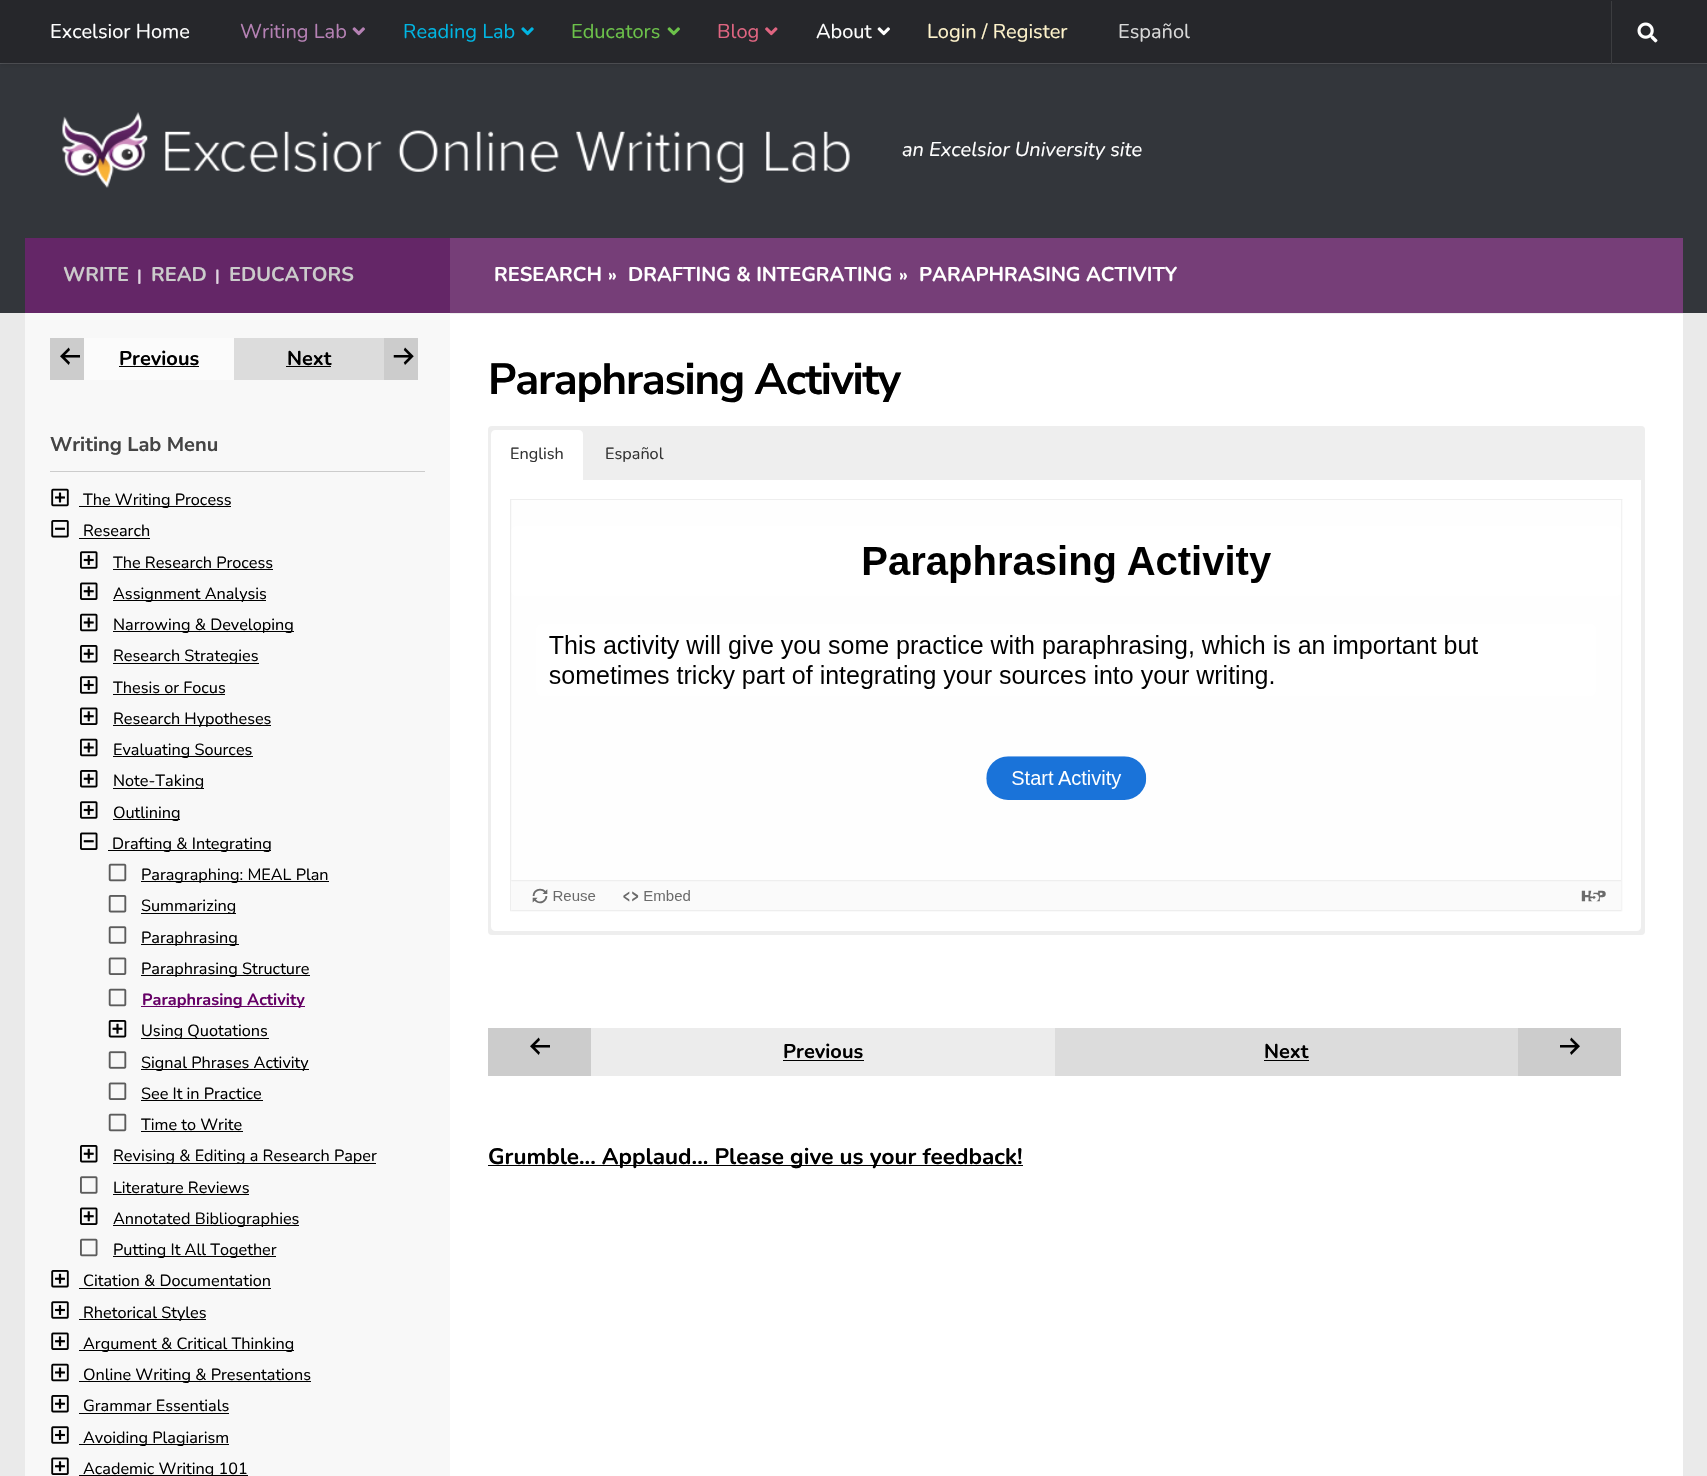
#include "include/core/SkBlurTypes.h"
#include "include/core/SkCanvas.h"
#include "include/core/SkData.h"
#include "include/core/SkFont.h"
#include "include/core/SkFontMgr.h"
#include "include/core/SkImage.h"
#include "include/core/SkMaskFilter.h"
#include "include/core/SkPaint.h"
#include "include/core/SkPathBuilder.h"
#include "include/core/SkTextBlob.h"
#include "include/effects/SkDashPathEffect.h"
#include "include/effects/SkGradientShader.h"
#include "include/utils/SkParsePath.h"

extern sk_sp<SkFontMgr> fontMgr;

static SkFont font(const char* family, int weight, float size, bool italic = false) {
    SkFontStyle style(weight, SkFontStyle::kNormal_Width,
        italic ? SkFontStyle::kItalic_Slant : SkFontStyle::kUpright_Slant);
    SkFont result(fontMgr->matchFamilyStyle(family, style), size);
    result.setSubpixel(true);
    return result;
}

static void drawLabel(SkCanvas* canvas, const char* s, float x, float y, const SkFont& font, SkColor color) {
    SkPaint ink(SkColor4f::FromColor(color));
    ink.setAntiAlias(true);
    canvas->drawString(s, x, y, font, ink);
}

static void drawTracked(SkCanvas* canvas, const char* s, float x, float y, const SkFont& font, const SkPaint& ink, float letter, float word) {
    std::vector<SkGlyphID> glyphs(font.countText(s, strlen(s), SkTextEncoding::kUTF8));
    std::vector<float> xs(glyphs.size());
    font.textToGlyphs(s, strlen(s), SkTextEncoding::kUTF8, glyphs);
    font.getXPos(glyphs, xs, x);
    float extra = 0;
    for (size_t i = 0; i < glyphs.size(); i++) {
        xs[i] += extra;
        extra += letter + word * (glyphs[i] == font.unicharToGlyph(' '));
    }
    canvas->drawTextBlob(SkTextBlob::MakeFromPosHGlyphs(glyphs, xs, y, font), 0, 0, ink);
}

static void fillRect(SkCanvas* canvas, float x, float y, float w, float h, SkColor color) {
    SkPaint ink(SkColor4f::FromColor(color));
    ink.setAntiAlias(true);
    canvas->drawRect(SkRect::MakeXYWH(x, y, w, h), ink);
}

static void fillRRect(SkCanvas* canvas, float x, float y, float w, float h, float radius, SkColor color) {
    SkPaint ink(SkColor4f::FromColor(color));
    ink.setAntiAlias(true);
    canvas->drawRoundRect(SkRect::MakeXYWH(x, y, w, h), radius, radius, ink);
}

static void drawPhoto(SkCanvas* canvas, const char* path, float x, float y, float w, float h) {
    auto image = SkImages::DeferredFromEncodedData(SkData::MakeFromFileName(path));
    canvas->drawImageRect(image, SkRect::MakeXYWH(x, y, w, h), SkSamplingOptions());
}

static SkPath parsePath(const char* data, bool evenOdd = false) {
    SkPath result = *SkParsePath::FromSVGString(data);
    if (evenOdd) result.setFillType(SkPathFillType::kEvenOdd);
    return result;
}

void draw(SkCanvas* canvas) {
    SkPaint paint;
    paint.setAntiAlias(true);
    canvas->clear(0xFFEAEAEA);
    fillRect(canvas, 0, 64, 1707, 249, 0xFF33363B);
    paint.setColor(0xFF525458);
    canvas->drawPath(parsePath("M0 62V64H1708V1V62Z"), paint);
    paint.setColor(0x33000000);
    paint.setMaskFilter(SkMaskFilter::MakeBlur(kNormal_SkBlurStyle, 3));
    canvas->drawRect(SkRect::MakeXYWH(0, 0, 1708, 63), paint);
    paint.setMaskFilter(nullptr);
    fillRect(canvas, 0, 0, 1707, 63, 0xFF26272B);
    SkFont font1 = font("Nunito", 400, 20);
    drawLabel(canvas, "Excelsior Home", 50, 38, font1, 0xFFFFFFFF);
    drawLabel(canvas, "Writing Lab", 240, 38, font1, 0xFFB581B4);
    drawPhoto(canvas, "assets/img1.png", 352, 27, 13, 9);
    drawLabel(canvas, "Reading Lab", 403, 38, font1, 0xFF00B5E2);
    drawPhoto(canvas, "assets/img2.png", 521, 27, 13, 9);
    drawLabel(canvas, "Educators", 571, 38, font1, 0xFF6CC24A);
    drawPhoto(canvas, "assets/img3.png", 667, 27, 13, 9);
    drawLabel(canvas, "Blog", 717, 38, font1, 0xFFE06581);
    drawPhoto(canvas, "assets/img4.png", 765, 27, 13, 9);
    drawLabel(canvas, "About", 816, 38, font1, 0xFFFFFFFF);
    drawPhoto(canvas, "assets/img5.png", 877, 27, 13, 9);
    drawLabel(canvas, "Login / Register", 927, 38, font1, 0xFFFEF3CB);
    drawLabel(canvas, "Español", 1118, 38, font1, 0xFFD9D9D9);
    paint.setColor(0xFF3C3D40);
    canvas->drawPath(parsePath("M1611 1V64H1681H1612V1H1681Z"), paint);
    drawPhoto(canvas, "assets/img6.png", 1637, 22, 21, 21);
    drawPhoto(canvas, "assets/img7.png", 62, 112, 788, 76);
    SkFont font2 = font("Nunito", 400, 20, true);
    drawLabel(canvas, "an Excelsior University site", 902, 156, font2, 0xFFFFFFFF);
    fillRect(canvas, 450, 314, 1233, 1162, 0xFFFFFFFF);
    fillRect(canvas, 25, 313, 425, 1163, 0xFFF8F8F8);
    fillRect(canvas, 25, 238, 425, 75, 0xFF642667);
    SkFont font3 = font("Nunito", 700, 20);
    drawLabel(canvas, "WRITE", 63, 281, font3, 0xFFCBCBCB);
    SkFont font4 = font("Nunito", 700, 16.25f);
    drawLabel(canvas, "|", 137, 281, font4, 0xFFE0D4E1);
    drawLabel(canvas, "READ", 151, 281, font3, 0xFFCBCBCB);
    drawLabel(canvas, "|", 215, 281, font4, 0xFFE0D4E1);
    drawLabel(canvas, "EDUCATORS", 229, 281, font3, 0xFFCBCBCB);
    fillRect(canvas, 50, 338, 34, 42, 0xFFCCCCCC);
    drawPhoto(canvas, "assets/img8.png", 60, 347, 20, 18);
    fillRect(canvas, 84, 338, 150, 42, 0xFFFBFBFB);
    drawLabel(canvas, "Previous", 119, 365, font3, 0xFF000000);
    fillRect(canvas, 119, 366, 80, 1, 0xFF000000);
    fillRect(canvas, 234, 338, 150, 42, 0xFFDCDCDC);
    drawLabel(canvas, "Next", 287, 365, font3, 0xFF000000);
    fillRect(canvas, 286, 366, 45, 1, 0xFF000000);
    fillRect(canvas, 384, 338, 34, 42, 0xFFCCCCCC);
    drawPhoto(canvas, "assets/img9.png", 393, 347, 21, 18);
    fillRect(canvas, 50, 471, 375, 1, 0xFFCCCCCC);
    SkFont font5 = font("Nunito Sans", 700, 20);
    drawLabel(canvas, "Writing Lab Menu", 50, 451, font5, 0xFF444444);
    drawPhoto(canvas, "assets/img10.png", 51, 488, 18, 19);
    fillRect(canvas, 79, 506, 152, 1, 0xFF000000);
    SkFont font6 = font("Nunito", 400, 16.25f);
    drawLabel(canvas, "The Writing Process", 83, 505, font6, 0xFF000000);
    drawPhoto(canvas, "assets/img11.png", 51, 520, 18, 18);
    fillRect(canvas, 79, 538, 71, 1, 0xFF000000);
    drawLabel(canvas, "Research", 83, 536, font6, 0xFF000000);
    drawPhoto(canvas, "assets/img12.png", 80, 551, 18, 18);
    drawLabel(canvas, "The Research Process", 113, 568, font6, 0xFF000000);
    fillRect(canvas, 113, 569, 160, 1, 0xFF000000);
    drawPhoto(canvas, "assets/img13.png", 80, 582, 18, 18);
    fillRect(canvas, 113, 600, 153, 1, 0xFF000000);
    drawLabel(canvas, "Assignment Analysis", 113, 599, font6, 0xFF000000);
    drawPhoto(canvas, "assets/img14.png", 80, 613, 18, 19);
    fillRect(canvas, 113, 631, 181, 1, 0xFF000000);
    drawLabel(canvas, "Narrowing & Developing", 113, 630, font6, 0xFF000000);
    drawPhoto(canvas, "assets/img15.png", 80, 645, 18, 18);
    fillRect(canvas, 113, 663, 146, 1, 0xFF000000);
    drawLabel(canvas, "Research Strategies", 113, 661, font6, 0xFF000000);
    drawPhoto(canvas, "assets/img12.png", 80, 676, 18, 18);
    drawLabel(canvas, "Thesis or Focus", 113, 693, font6, 0xFF000000);
    fillRect(canvas, 113, 694, 112, 1, 0xFF000000);
    drawPhoto(canvas, "assets/img13.png", 80, 707, 18, 18);
    fillRect(canvas, 113, 725, 158, 1, 0xFF000000);
    drawLabel(canvas, "Research Hypotheses", 113, 724, font6, 0xFF000000);
    drawPhoto(canvas, "assets/img14.png", 80, 738, 18, 19);
    fillRect(canvas, 113, 756, 140, 1, 0xFF000000);
    drawLabel(canvas, "Evaluating Sources", 113, 755, font6, 0xFF000000);
    drawPhoto(canvas, "assets/img15.png", 80, 770, 18, 18);
    fillRect(canvas, 113, 788, 91, 1, 0xFF000000);
    drawLabel(canvas, "Note-Taking", 113, 786, font6, 0xFF000000);
    drawPhoto(canvas, "assets/img12.png", 80, 801, 18, 18);
    fillRect(canvas, 113, 819, 67, 1, 0xFF000000);
    drawLabel(canvas, "Outlining", 113, 818, font6, 0xFF000000);
    drawPhoto(canvas, "assets/img16.png", 80, 832, 18, 18);
    fillRect(canvas, 108, 850, 163, 1, 0xFF000000);
    drawLabel(canvas, "Drafting & Integrating", 112, 849, font6, 0xFF000000);
    drawPhoto(canvas, "assets/img17.png", 108, 863, 19, 19);
    fillRect(canvas, 141, 881, 188, 1, 0xFF000000);
    drawLabel(canvas, "Paragraphing: MEAL Plan", 141, 880, font6, 0xFF000000);
    drawPhoto(canvas, "assets/img18.png", 108, 895, 19, 18);
    fillRect(canvas, 141, 913, 95, 1, 0xFF000000);
    drawLabel(canvas, "Summarizing", 141, 911, font6, 0xFF000000);
    drawPhoto(canvas, "assets/img19.png", 108, 926, 19, 18);
    fillRect(canvas, 141, 944, 98, 1, 0xFF000000);
    drawLabel(canvas, "Paraphrasing", 141, 943, font6, 0xFF000000);
    drawPhoto(canvas, "assets/img20.png", 108, 957, 19, 18);
    fillRect(canvas, 141, 975, 169, 1, 0xFF000000);
    drawLabel(canvas, "Paraphrasing Structure", 141, 974, font6, 0xFF000000);
    drawPhoto(canvas, "assets/img17.png", 108, 988, 19, 19);
    fillRect(canvas, 141, 1006, 164, 1, 0xFF660066);
    drawLabel(canvas, "Paraphrasing Activity", 142, 1005, font4, 0xFF660066);
    drawPhoto(canvas, "assets/img21.png", 108, 1020, 19, 18);
    fillRect(canvas, 141, 1038, 128, 1, 0xFF000000);
    drawLabel(canvas, "Using Quotations", 141, 1036, font6, 0xFF000000);
    drawPhoto(canvas, "assets/img19.png", 108, 1051, 19, 18);
    fillRect(canvas, 141, 1069, 168, 1, 0xFF000000);
    drawLabel(canvas, "Signal Phrases Activity", 141, 1068, font6, 0xFF000000);
    drawPhoto(canvas, "assets/img20.png", 108, 1082, 19, 18);
    drawLabel(canvas, "See It in Practice", 141, 1099, font6, 0xFF000000);
    fillRect(canvas, 141, 1100, 122, 1, 0xFF000000);
    drawPhoto(canvas, "assets/img17.png", 108, 1113, 19, 19);
    drawLabel(canvas, "Time to Write", 141, 1130, font6, 0xFF000000);
    fillRect(canvas, 141, 1131, 102, 1, 0xFF000000);
    drawPhoto(canvas, "assets/img15.png", 80, 1145, 18, 18);
    fillRect(canvas, 113, 1163, 263, 1, 0xFF000000);
    drawLabel(canvas, "Revising & Editing a Research Paper", 113, 1161, font6, 0xFF000000);
    drawPhoto(canvas, "assets/img22.png", 80, 1176, 18, 18);
    drawLabel(canvas, "Literature Reviews", 113, 1193, font6, 0xFF000000);
    fillRect(canvas, 113, 1194, 136, 1, 0xFF000000);
    drawPhoto(canvas, "assets/img13.png", 80, 1207, 18, 18);
    fillRect(canvas, 113, 1225, 186, 1, 0xFF000000);
    drawLabel(canvas, "Annotated Bibliographies", 113, 1224, font6, 0xFF000000);
    drawPhoto(canvas, "assets/img23.png", 80, 1238, 18, 19);
    fillRect(canvas, 113, 1256, 163, 1, 0xFF000000);
    drawLabel(canvas, "Putting It All Together", 113, 1255, font6, 0xFF000000);
    drawPhoto(canvas, "assets/img24.png", 51, 1270, 18, 18);
    fillRect(canvas, 79, 1288, 192, 1, 0xFF000000);
    drawLabel(canvas, "Citation & Documentation", 83, 1286, font6, 0xFF000000);
    drawPhoto(canvas, "assets/img25.png", 51, 1301, 18, 18);
    fillRect(canvas, 79, 1319, 127, 1, 0xFF000000);
    drawLabel(canvas, "Rhetorical Styles", 83, 1318, font6, 0xFF000000);
    drawPhoto(canvas, "assets/img26.png", 51, 1332, 18, 18);
    fillRect(canvas, 79, 1350, 215, 1, 0xFF000000);
    drawLabel(canvas, "Argument & Critical Thinking", 83, 1349, font6, 0xFF000000);
    drawPhoto(canvas, "assets/img10.png", 51, 1363, 18, 19);
    fillRect(canvas, 79, 1381, 232, 1, 0xFF000000);
    drawLabel(canvas, "Online Writing & Presentations", 83, 1380, font6, 0xFF000000);
    drawPhoto(canvas, "assets/img24.png", 51, 1395, 18, 18);
    fillRect(canvas, 79, 1413, 150, 1, 0xFF000000);
    drawLabel(canvas, "Grammar Essentials", 83, 1411, font6, 0xFF000000);
    drawPhoto(canvas, "assets/img25.png", 51, 1426, 18, 18);
    fillRect(canvas, 79, 1444, 150, 1, 0xFF000000);
    drawLabel(canvas, "Avoiding Plagiarism", 83, 1443, font6, 0xFF000000);
    drawPhoto(canvas, "assets/img26.png", 51, 1457, 18, 18);
    fillRect(canvas, 79, 1475, 169, 1, 0xFF000000);
    drawLabel(canvas, "Academic Writing 101", 83, 1474, font6, 0xFF000000);
    fillRect(canvas, 450, 238, 1233, 75, 0xFF763E78);
    fillRect(canvas, 450, 313, 1233, 1, 0xFFEEEEEE);
    drawLabel(canvas, "RESEARCH", 494, 281, font3, 0xFFFFFFFF);
    SkFont font7 = font("Nunito", 700, 18);
    drawLabel(canvas, "»", 608, 281, font7, 0xFFFFFFFF);
    drawLabel(canvas, "DRAFTING & INTEGRATING", 628, 281, font3, 0xFFFFFFFF);
    drawLabel(canvas, "»", 899, 281, font7, 0xFFFFFFFF);
    drawLabel(canvas, "PARAPHRASING ACTIVITY", 919, 281, font3, 0xFFFFFFFF);
    SkFont font8 = font("Nunito Sans", 700, 43.75f);
    paint.setColor(0xFF000000);
    drawTracked(canvas, "Paraphrasing Activity", 488, 394, font8, paint, -1.25f, 0);
    fillRRect(canvas, 488, 426, 1157, 509, 4, 0xFFEEEEEE);
    paint.setColor(0xFFFFFFFF);
    canvas->drawPath(parsePath("M495 430H579C581 430 583 432 583 434V480H491V434C491 432 493 430 495 430Z"), paint);
    drawLabel(canvas, "English", 510, 459, font6, 0xFF333333);
    drawLabel(canvas, "Español", 605, 459, font6, 0xFF333333);
    canvas->drawPath(parsePath("M491 480H1641V927C1641 929 1639 931 1637 931H495C493 931 491 929 491 927Z"), paint);
    drawPhoto(canvas, "assets/img27.png", 510, 499, 1113, 413);
    fillRect(canvas, 488, 1028, 103, 48, 0xFFCCCCCC);
    drawPhoto(canvas, "assets/img8.png", 530, 1037, 20, 18);
    fillRect(canvas, 591, 1028, 464, 48, 0xFFECECEC);
    drawLabel(canvas, "Previous", 783, 1058, font3, 0xFF000000);
    fillRect(canvas, 783, 1060, 81, 1, 0xFF000000);
    fillRect(canvas, 1055, 1028, 463, 48, 0xFFDCDCDC);
    drawLabel(canvas, "Next", 1264, 1058, font3, 0xFF000000);
    fillRect(canvas, 1264, 1060, 45, 1, 0xFF000000);
    fillRect(canvas, 1518, 1028, 103, 48, 0xFFCCCCCC);
    drawPhoto(canvas, "assets/img28.png", 1560, 1037, 20, 18);
    fillRect(canvas, 488, 1165, 535, 1, 0xFF000000);
    SkFont font9 = font("Nunito", 700, 22.5f);
    drawLabel(canvas, "Grumble... Applaud... Please give us your feedback!", 488, 1164, font9, 0xFF000000);
}
